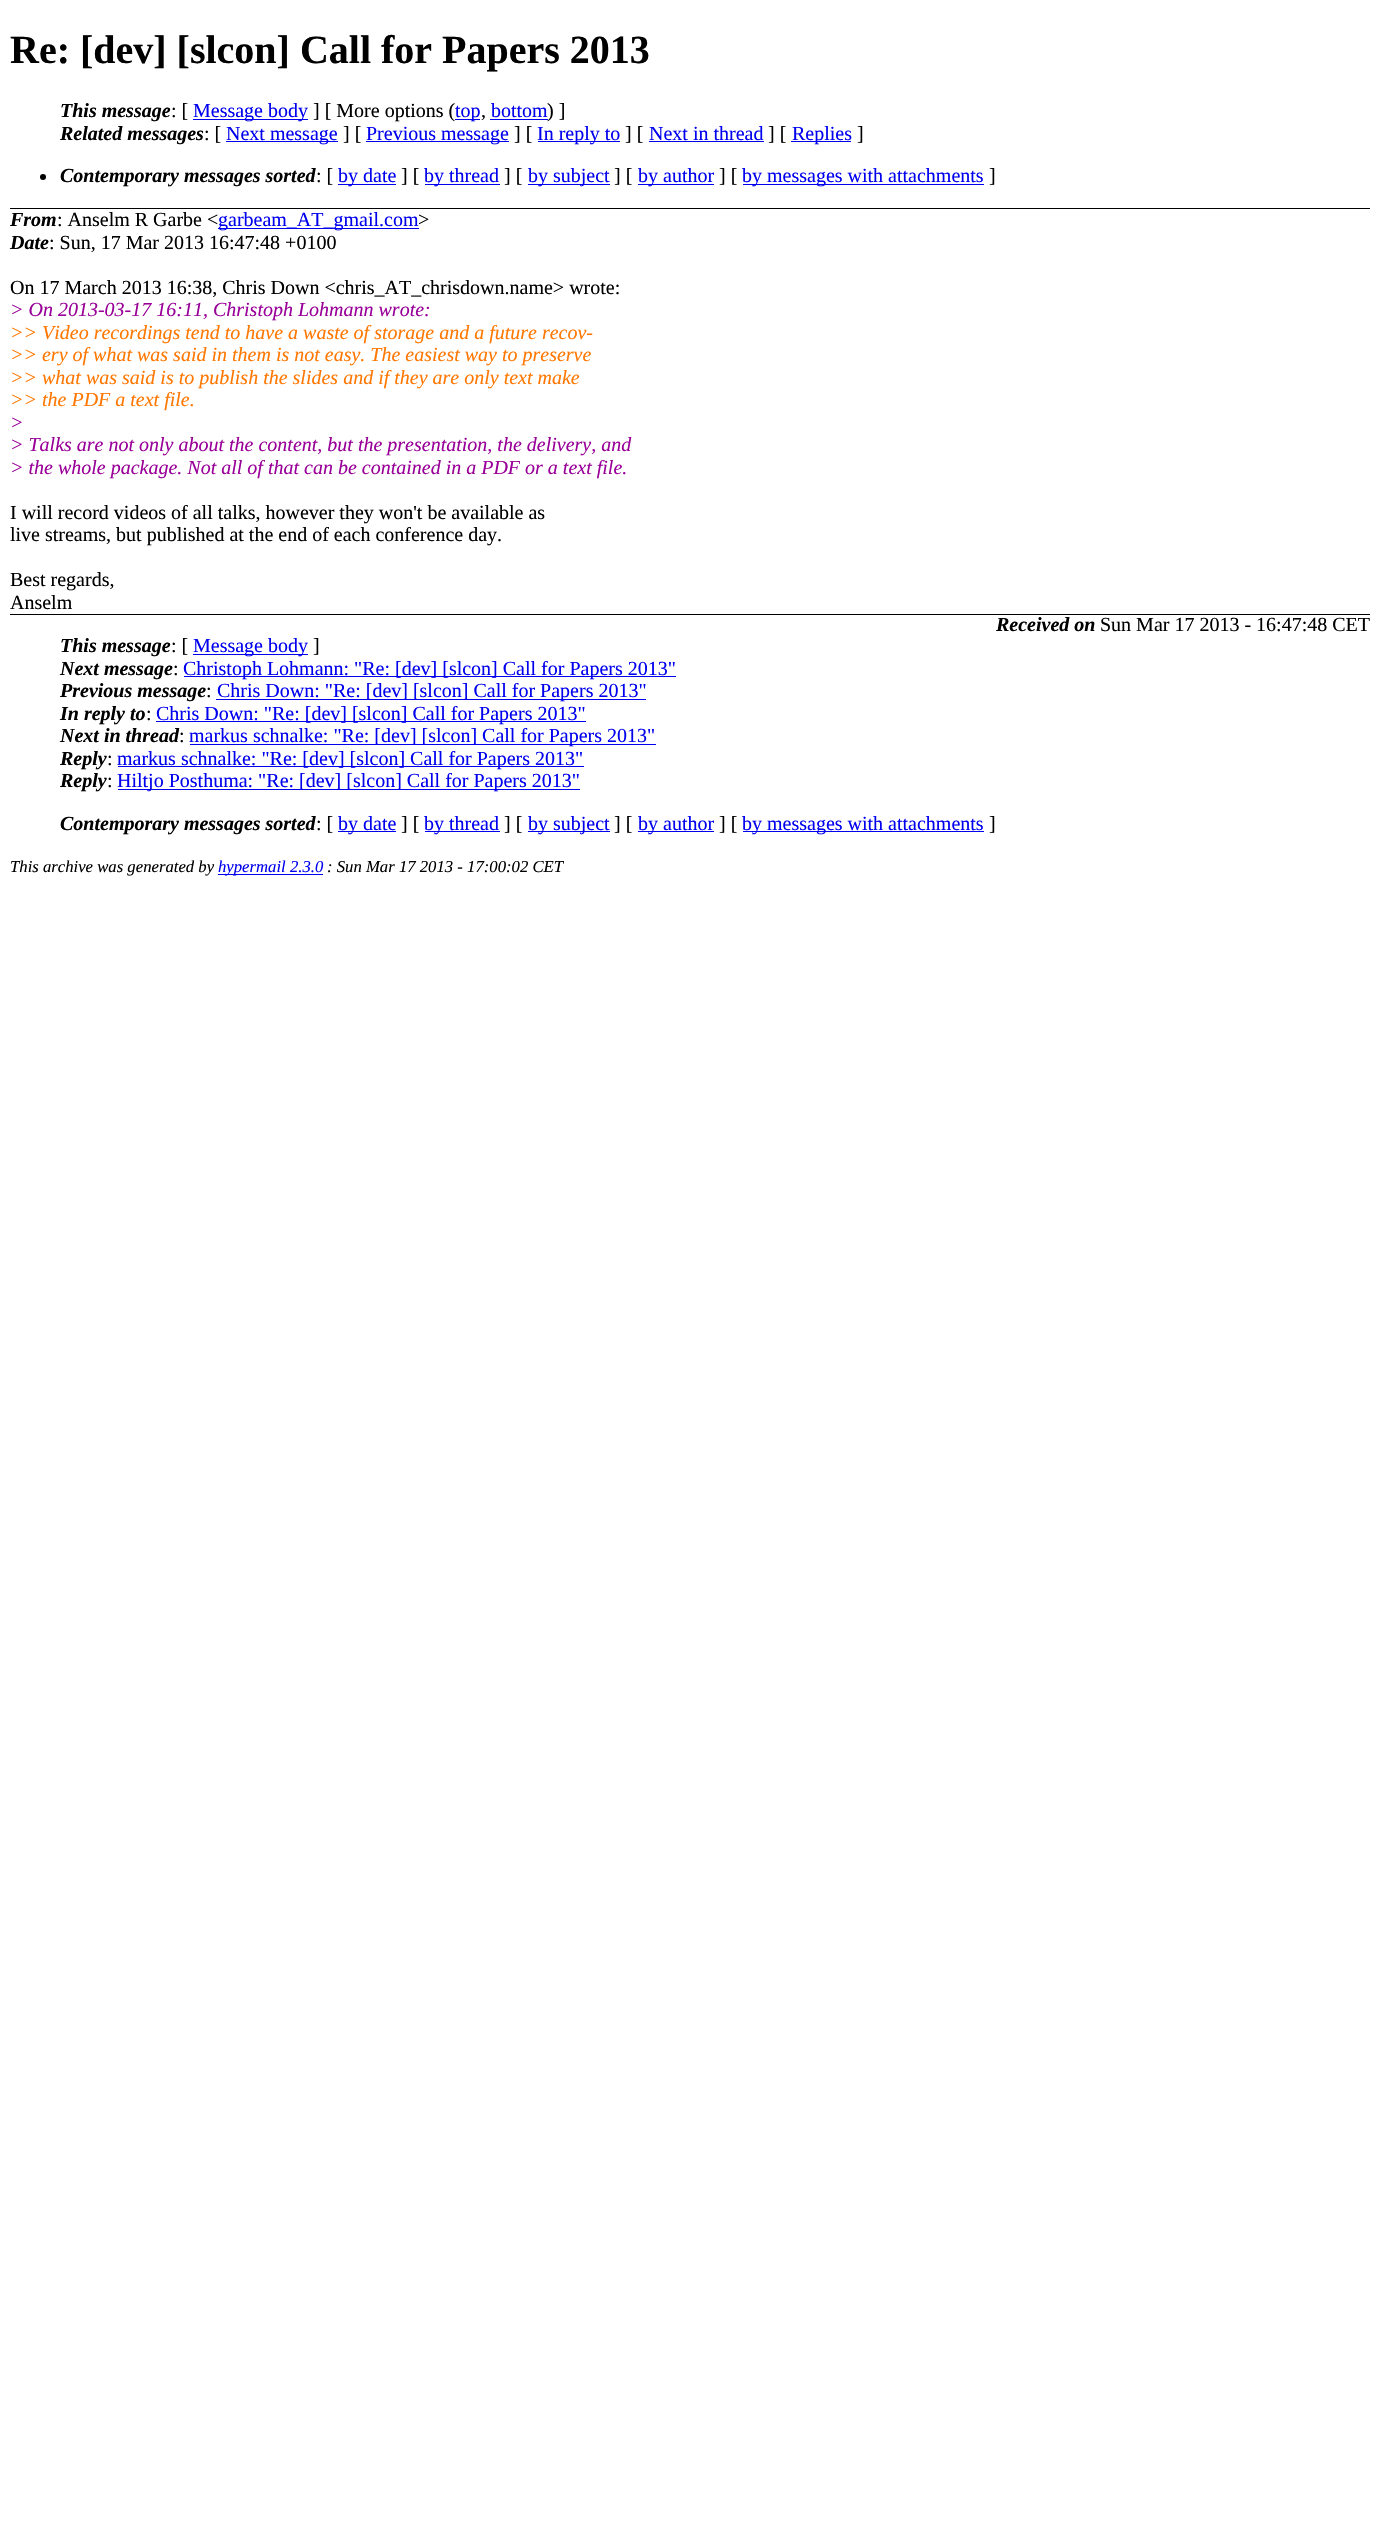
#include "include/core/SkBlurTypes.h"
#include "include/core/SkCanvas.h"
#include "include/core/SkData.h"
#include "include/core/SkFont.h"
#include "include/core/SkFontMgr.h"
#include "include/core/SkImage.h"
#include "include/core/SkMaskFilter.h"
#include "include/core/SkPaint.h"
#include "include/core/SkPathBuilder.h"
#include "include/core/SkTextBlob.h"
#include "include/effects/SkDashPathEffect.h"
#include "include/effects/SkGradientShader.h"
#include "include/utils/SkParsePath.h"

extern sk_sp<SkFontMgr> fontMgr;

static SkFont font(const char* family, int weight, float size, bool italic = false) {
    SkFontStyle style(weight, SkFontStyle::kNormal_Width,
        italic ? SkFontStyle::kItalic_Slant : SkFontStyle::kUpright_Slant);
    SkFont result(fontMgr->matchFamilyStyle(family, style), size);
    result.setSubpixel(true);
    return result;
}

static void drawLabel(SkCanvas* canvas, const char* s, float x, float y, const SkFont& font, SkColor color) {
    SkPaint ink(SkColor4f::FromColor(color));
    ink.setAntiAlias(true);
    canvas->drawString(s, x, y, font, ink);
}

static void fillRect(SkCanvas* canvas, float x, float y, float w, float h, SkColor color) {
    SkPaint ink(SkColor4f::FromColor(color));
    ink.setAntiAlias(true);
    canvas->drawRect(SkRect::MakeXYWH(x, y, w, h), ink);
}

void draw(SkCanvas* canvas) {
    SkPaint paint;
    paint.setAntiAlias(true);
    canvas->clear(0xFFFFFFFF);
    fillRect(canvas, 10, 208, 1360, 1, 0xFF000000);
    SkFont font1 = font("Liberation Serif", 700, 40);
    drawLabel(canvas, "Re: [dev] [slcon] Call for Papers 2013", 10, 63, font1, 0xFF000000);
    SkFont font2 = font("Liberation Serif", 700, 20, true);
    drawLabel(canvas, "This message", 60, 117, font2, 0xFF000000);
    SkFont font3 = font("Liberation Serif", 400, 20);
    drawLabel(canvas, ": [", 171, 117, font3, 0xFF000000);
    fillRect(canvas, 193, 119, 115, 1, 0xFF0000EE);
    drawLabel(canvas, "Message body", 193, 117, font3, 0xFF0000EE);
    drawLabel(canvas, "] [ More options (", 313, 117, font3, 0xFF000000);
    fillRect(canvas, 455, 119, 25, 1, 0xFF0000EE);
    drawLabel(canvas, "top", 455, 117, font3, 0xFF0000EE);
    drawLabel(canvas, ",", 481, 117, font3, 0xFF000000);
    drawLabel(canvas, "bottom", 491, 117, font3, 0xFF0000EE);
    fillRect(canvas, 490, 119, 58, 1, 0xFF0000EE);
    drawLabel(canvas, ") ]", 547, 117, font3, 0xFF000000);
    drawLabel(canvas, "Related messages", 60, 140, font2, 0xFF000000);
    drawLabel(canvas, ": [", 204, 140, font3, 0xFF000000);
    fillRect(canvas, 226, 141, 112, 1, 0xFF0000EE);
    drawLabel(canvas, "Next message", 226, 140, font3, 0xFF0000EE);
    drawLabel(canvas, "] [", 343, 140, font3, 0xFF000000);
    fillRect(canvas, 366, 141, 143, 1, 0xFF0000EE);
    drawLabel(canvas, "Previous message", 366, 140, font3, 0xFF0000EE);
    drawLabel(canvas, "] [", 514, 140, font3, 0xFF000000);
    fillRect(canvas, 538, 141, 82, 1, 0xFF0000EE);
    drawLabel(canvas, "In reply to", 537, 140, font3, 0xFF0000EE);
    drawLabel(canvas, "] [", 625, 140, font3, 0xFF000000);
    drawLabel(canvas, "Next in thread", 649, 140, font3, 0xFF0000EE);
    fillRect(canvas, 649, 141, 115, 1, 0xFF0000EE);
    drawLabel(canvas, "] [", 768, 140, font3, 0xFF000000);
    fillRect(canvas, 791, 141, 60, 1, 0xFF0000EE);
    drawLabel(canvas, "Replies", 792, 140, font3, 0xFF0000EE);
    drawLabel(canvas, "]", 857, 140, font3, 0xFF000000);
    paint.setColor(0xFF000000);
    canvas->drawCircle(43, 177, 3, paint);
    drawLabel(canvas, "Contemporary messages sorted", 60, 182, font2, 0xFF000000);
    drawLabel(canvas, ": [", 316, 182, font3, 0xFF000000);
    fillRect(canvas, 338, 184, 58, 1, 0xFF0000EE);
    drawLabel(canvas, "by date", 338, 182, font3, 0xFF0000EE);
    drawLabel(canvas, "] [", 401, 182, font3, 0xFF000000);
    fillRect(canvas, 425, 184, 75, 1, 0xFF0000EE);
    drawLabel(canvas, "by thread", 424, 182, font3, 0xFF0000EE);
    drawLabel(canvas, "] [", 504, 182, font3, 0xFF000000);
    fillRect(canvas, 528, 184, 82, 1, 0xFF0000EE);
    drawLabel(canvas, "by subject", 528, 182, font3, 0xFF0000EE);
    drawLabel(canvas, "] [", 614, 182, font3, 0xFF000000);
    fillRect(canvas, 638, 184, 76, 1, 0xFF0000EE);
    drawLabel(canvas, "by author", 638, 182, font3, 0xFF0000EE);
    drawLabel(canvas, "] [", 719, 182, font3, 0xFF000000);
    fillRect(canvas, 743, 184, 241, 1, 0xFF0000EE);
    drawLabel(canvas, "by messages with attachments", 742, 182, font3, 0xFF0000EE);
    drawLabel(canvas, "]", 989, 182, font3, 0xFF000000);
    drawLabel(canvas, "From", 10, 226, font2, 0xFF000000);
    drawLabel(canvas, ": Anselm R Garbe <", 57, 226, font3, 0xFF000000);
    fillRect(canvas, 218, 228, 201, 1, 0xFF0000EE);
    drawLabel(canvas, "garbeam_AT_gmail.com", 218, 226, font3, 0xFF0000EE);
    drawLabel(canvas, ">", 418, 226, font3, 0xFF000000);
    drawLabel(canvas, "Date", 10, 249, font2, 0xFF000000);
    drawLabel(canvas, ": Sun, 17 Mar 2013 16:47:48 +0100", 49, 249, font3, 0xFF000000);
    drawLabel(canvas, "On 17 March 2013 16:38, Chris Down <chris_AT_chrisdown.name> wrote:", 10, 294, font3, 0xFF000000);
    SkFont font4 = font("Liberation Serif", 400, 20, true);
    drawLabel(canvas, "> On 2013-03-17 16:11, Christoph Lohmann wrote:", 10, 316, font4, 0xFF990099);
    drawLabel(canvas, ">> Video recordings tend to have a waste of storage and a future recov‐", 10, 339, font4, 0xFFFF7700);
    drawLabel(canvas, ">> ery of what was said in them is not easy. The easiest way to preserve", 10, 361, font4, 0xFFFF7700);
    drawLabel(canvas, ">> what was said is to publish the slides and if they are only text make", 10, 384, font4, 0xFFFF7700);
    drawLabel(canvas, ">> the PDF a text file.", 10, 406, font4, 0xFFFF7700);
    drawLabel(canvas, ">", 10, 429, font4, 0xFF990099);
    drawLabel(canvas, "> Talks are not only about the content, but the presentation, the delivery, and", 10, 451, font4, 0xFF990099);
    drawLabel(canvas, "> the whole package. Not all of that can be contained in a PDF or a text file.", 10, 474, font4, 0xFF990099);
    drawLabel(canvas, "I will record videos of all talks, however they won't be available as", 10, 519, font3, 0xFF000000);
    drawLabel(canvas, "live streams, but published at the end of each conference day.", 10, 541, font3, 0xFF000000);
    drawLabel(canvas, "Best regards,", 10, 586, font3, 0xFF000000);
    drawLabel(canvas, "Anselm", 10, 609, font3, 0xFF000000);
    drawLabel(canvas, "Received on", 996, 631, font2, 0xFF000000);
    drawLabel(canvas, "Sun Mar 17 2013 - 16:47:48 CET", 1100, 631, font3, 0xFF000000);
    fillRect(canvas, 10, 614, 1360, 1, 0xFF000000);
    drawLabel(canvas, "This message", 60, 652, font2, 0xFF000000);
    drawLabel(canvas, ": [", 171, 652, font3, 0xFF000000);
    fillRect(canvas, 193, 654, 115, 1, 0xFF0000EE);
    drawLabel(canvas, "Message body", 193, 652, font3, 0xFF0000EE);
    drawLabel(canvas, "]", 313, 652, font3, 0xFF000000);
    drawLabel(canvas, "Next message", 60, 675, font2, 0xFF000000);
    drawLabel(canvas, ":", 173, 675, font3, 0xFF000000);
    fillRect(canvas, 184, 676, 492, 1, 0xFF0000EE);
    drawLabel(canvas, "Christoph Lohmann: \"Re: [dev] [slcon] Call for Papers 2013\"", 183, 675, font3, 0xFF0000EE);
    drawLabel(canvas, "Previous message", 60, 697, font2, 0xFF000000);
    drawLabel(canvas, ":", 206, 697, font3, 0xFF000000);
    fillRect(canvas, 216, 699, 430, 1, 0xFF0000EE);
    drawLabel(canvas, "Chris Down: \"Re: [dev] [slcon] Call for Papers 2013\"", 217, 697, font3, 0xFF0000EE);
    drawLabel(canvas, "In reply to", 60, 720, font2, 0xFF000000);
    drawLabel(canvas, ":", 146, 720, font3, 0xFF000000);
    fillRect(canvas, 156, 721, 430, 1, 0xFF0000EE);
    drawLabel(canvas, "Chris Down: \"Re: [dev] [slcon] Call for Papers 2013\"", 156, 720, font3, 0xFF0000EE);
    drawLabel(canvas, "Next in thread", 60, 742, font2, 0xFF000000);
    drawLabel(canvas, ":", 179, 742, font3, 0xFF000000);
    fillRect(canvas, 190, 744, 466, 1, 0xFF0000EE);
    drawLabel(canvas, "markus schnalke: \"Re: [dev] [slcon] Call for Papers 2013\"", 189, 742, font3, 0xFF0000EE);
    drawLabel(canvas, "Reply", 60, 765, font2, 0xFF000000);
    drawLabel(canvas, ":", 107, 765, font3, 0xFF000000);
    fillRect(canvas, 118, 766, 466, 1, 0xFF0000EE);
    drawLabel(canvas, "markus schnalke: \"Re: [dev] [slcon] Call for Papers 2013\"", 117, 765, font3, 0xFF0000EE);
    drawLabel(canvas, "Reply", 60, 787, font2, 0xFF000000);
    drawLabel(canvas, ":", 107, 787, font3, 0xFF000000);
    fillRect(canvas, 118, 789, 462, 1, 0xFF0000EE);
    drawLabel(canvas, "Hiltjo Posthuma: \"Re: [dev] [slcon] Call for Papers 2013\"", 117, 787, font3, 0xFF0000EE);
    drawLabel(canvas, "Contemporary messages sorted", 60, 830, font2, 0xFF000000);
    drawLabel(canvas, ": [", 316, 830, font3, 0xFF000000);
    fillRect(canvas, 338, 831, 58, 1, 0xFF0000EE);
    drawLabel(canvas, "by date", 338, 830, font3, 0xFF0000EE);
    drawLabel(canvas, "] [", 401, 830, font3, 0xFF000000);
    fillRect(canvas, 425, 831, 75, 1, 0xFF0000EE);
    drawLabel(canvas, "by thread", 424, 830, font3, 0xFF0000EE);
    drawLabel(canvas, "] [", 504, 830, font3, 0xFF000000);
    fillRect(canvas, 528, 831, 82, 1, 0xFF0000EE);
    drawLabel(canvas, "by subject", 528, 830, font3, 0xFF0000EE);
    drawLabel(canvas, "] [", 614, 830, font3, 0xFF000000);
    fillRect(canvas, 638, 831, 76, 1, 0xFF0000EE);
    drawLabel(canvas, "by author", 638, 830, font3, 0xFF0000EE);
    drawLabel(canvas, "] [", 719, 830, font3, 0xFF000000);
    fillRect(canvas, 743, 831, 241, 1, 0xFF0000EE);
    drawLabel(canvas, "by messages with attachments", 742, 830, font3, 0xFF0000EE);
    drawLabel(canvas, "]", 989, 830, font3, 0xFF000000);
    SkFont font5 = font("Liberation Serif", 400, 16.7f, true);
    drawLabel(canvas, "This archive was generated by", 10, 872, font5, 0xFF000000);
    fillRect(canvas, 218, 874, 105, 1, 0xFF0000EE);
    drawLabel(canvas, "hypermail 2.3.0", 218, 872, font5, 0xFF0000EE);
    drawLabel(canvas, ": Sun Mar 17 2013 - 17:00:02 CET", 327, 872, font5, 0xFF000000);
}
